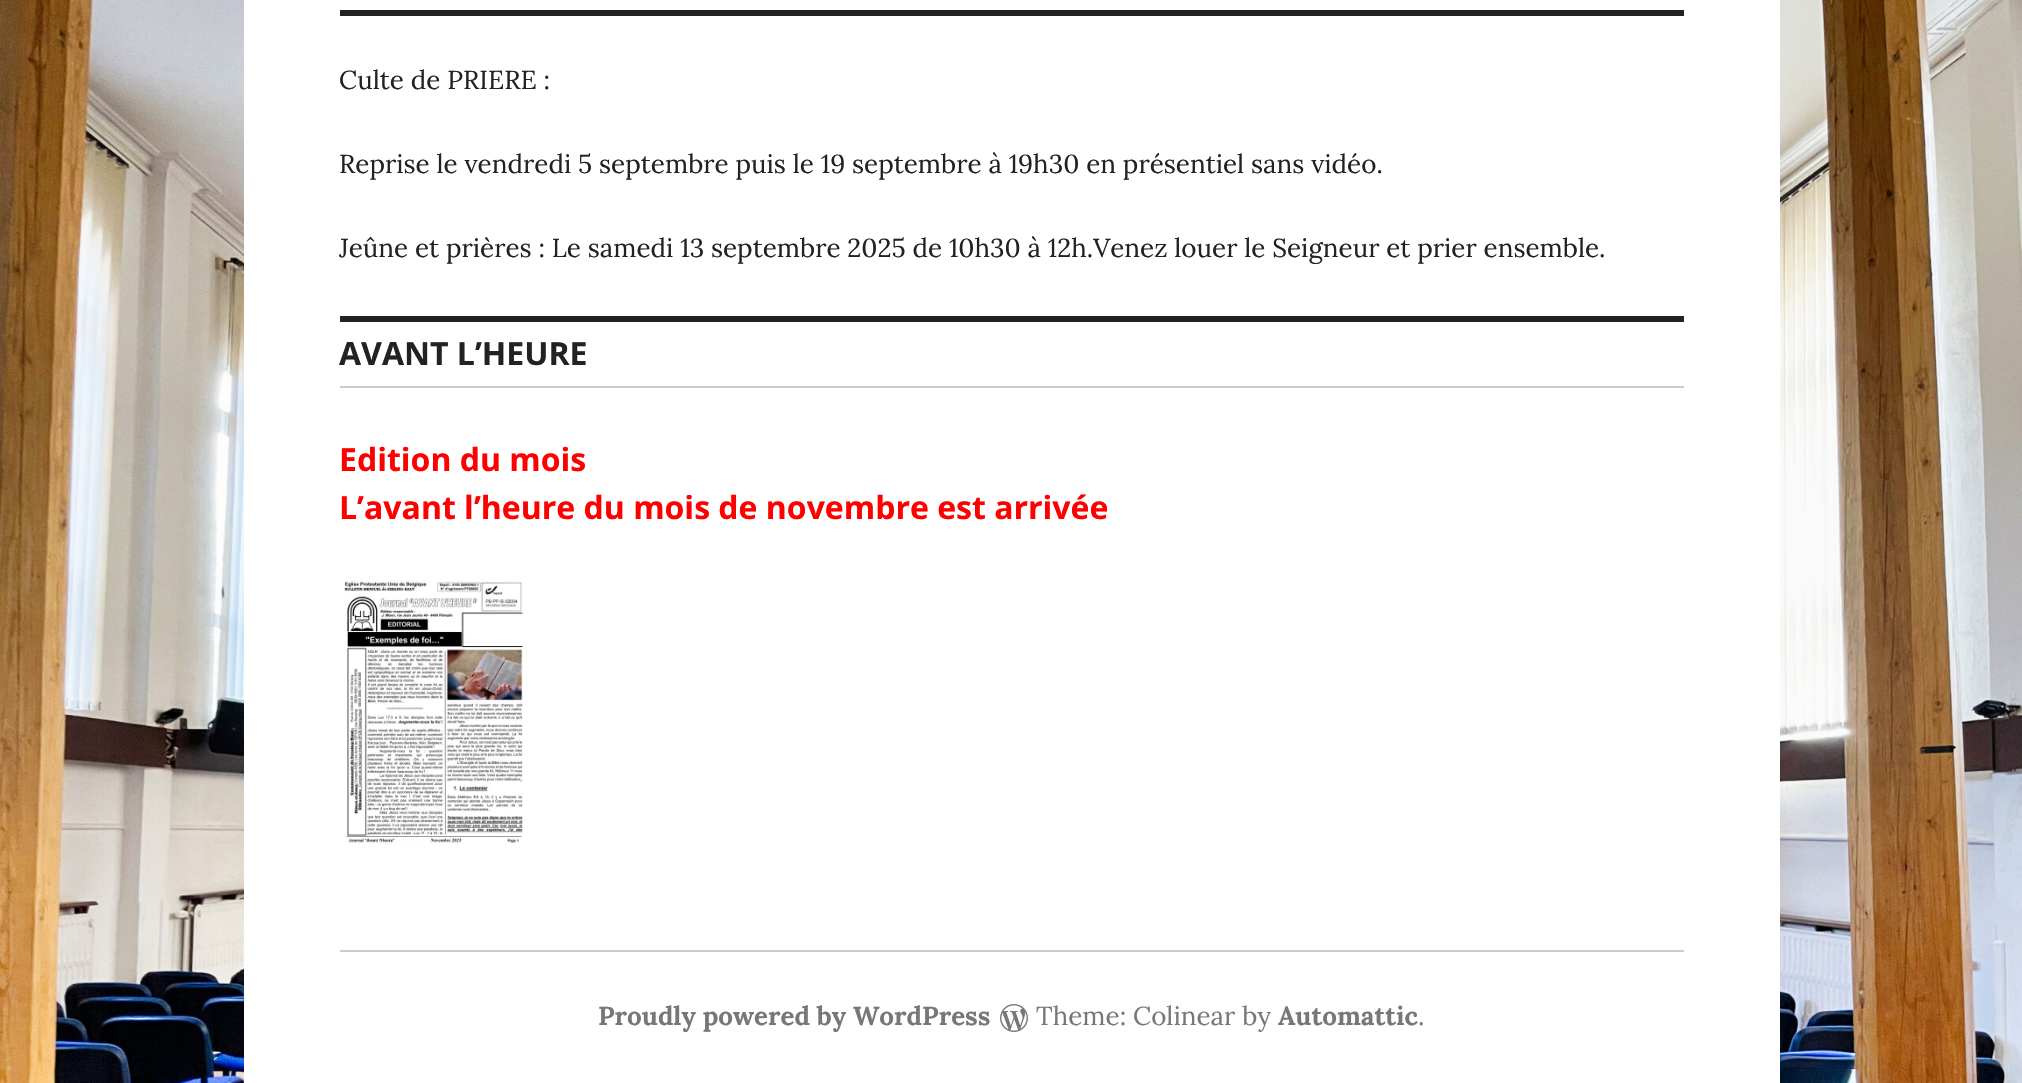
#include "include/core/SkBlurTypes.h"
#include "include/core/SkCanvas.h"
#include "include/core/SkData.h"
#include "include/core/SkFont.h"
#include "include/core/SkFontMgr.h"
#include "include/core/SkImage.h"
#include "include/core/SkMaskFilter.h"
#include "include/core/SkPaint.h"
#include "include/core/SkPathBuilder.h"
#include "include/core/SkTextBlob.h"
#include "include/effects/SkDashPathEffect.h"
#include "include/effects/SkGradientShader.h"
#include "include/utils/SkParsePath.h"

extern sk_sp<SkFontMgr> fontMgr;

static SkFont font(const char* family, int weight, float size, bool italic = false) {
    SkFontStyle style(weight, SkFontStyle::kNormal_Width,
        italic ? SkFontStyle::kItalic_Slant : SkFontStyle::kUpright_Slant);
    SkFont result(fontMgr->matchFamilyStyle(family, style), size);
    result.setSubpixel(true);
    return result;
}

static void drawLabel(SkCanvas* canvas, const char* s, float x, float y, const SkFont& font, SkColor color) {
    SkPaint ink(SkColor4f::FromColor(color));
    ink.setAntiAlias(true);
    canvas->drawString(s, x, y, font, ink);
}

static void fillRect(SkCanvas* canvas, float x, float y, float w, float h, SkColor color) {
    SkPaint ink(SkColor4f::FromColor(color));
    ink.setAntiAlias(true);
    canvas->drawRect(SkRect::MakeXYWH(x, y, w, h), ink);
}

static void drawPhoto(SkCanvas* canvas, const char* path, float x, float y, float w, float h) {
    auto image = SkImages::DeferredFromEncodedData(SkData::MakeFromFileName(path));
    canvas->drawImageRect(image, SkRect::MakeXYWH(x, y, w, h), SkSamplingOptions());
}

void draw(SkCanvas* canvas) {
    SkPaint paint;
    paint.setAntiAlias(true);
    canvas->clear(0xFFFFFFFF);
    drawPhoto(canvas, "assets/img1.png", 0, 0, 2022, 1083);
    fillRect(canvas, 244, 0, 1536, 1083, 0xFFFFFFFF);
    fillRect(canvas, 340, 10, 1344, 6, 0xFF222222);
    SkFont font1 = font("Lora", 400, 26);
    drawLabel(canvas, "Culte de PRIERE :", 339, 89, font1, 0xFF222222);
    drawLabel(canvas, "Reprise le vendredi 5 septembre puis le 19 septembre à 19h30 en présentiel sans vidéo.", 339, 173, font1, 0xFF222222);
    drawLabel(canvas, "Jeûne et prières : Le samedi 13 septembre 2025 de 10h30 à 12h.Venez louer le Seigneur et prier ensemble.", 339, 257, font1, 0xFF222222);
    fillRect(canvas, 340, 316, 1344, 6, 0xFF222222);
    fillRect(canvas, 340, 386, 1344, 2, 0xFFCCCCCC);
    SkFont font2 = font("Open Sans", 700, 32);
    drawLabel(canvas, "AVANT L’HEURE", 339, 365, font2, 0xFF222222);
    drawLabel(canvas, "Edition du mois", 339, 471, font2, 0xFFFF0000);
    drawLabel(canvas, "L’avant l’heure du mois de novembre est arrivée", 339, 519, font2, 0xFFFF0000);
    drawPhoto(canvas, "assets/img2.png", 344, 580, 179, 264);
    fillRect(canvas, 340, 950, 1344, 2, 0xFFCCCCCC);
    SkFont font3 = font("Lora", 700, 26);
    drawLabel(canvas, "Proudly powered by WordPress", 598, 1025, font3, 0xFF777777);
    drawPhoto(canvas, "assets/img3.png", 1000, 1004, 28, 28);
    drawLabel(canvas, "Theme: Colinear by", 1036, 1025, font1, 0xFF777777);
    drawLabel(canvas, "Automattic", 1278, 1025, font3, 0xFF777777);
    drawLabel(canvas, ".", 1418, 1025, font1, 0xFF777777);
}
